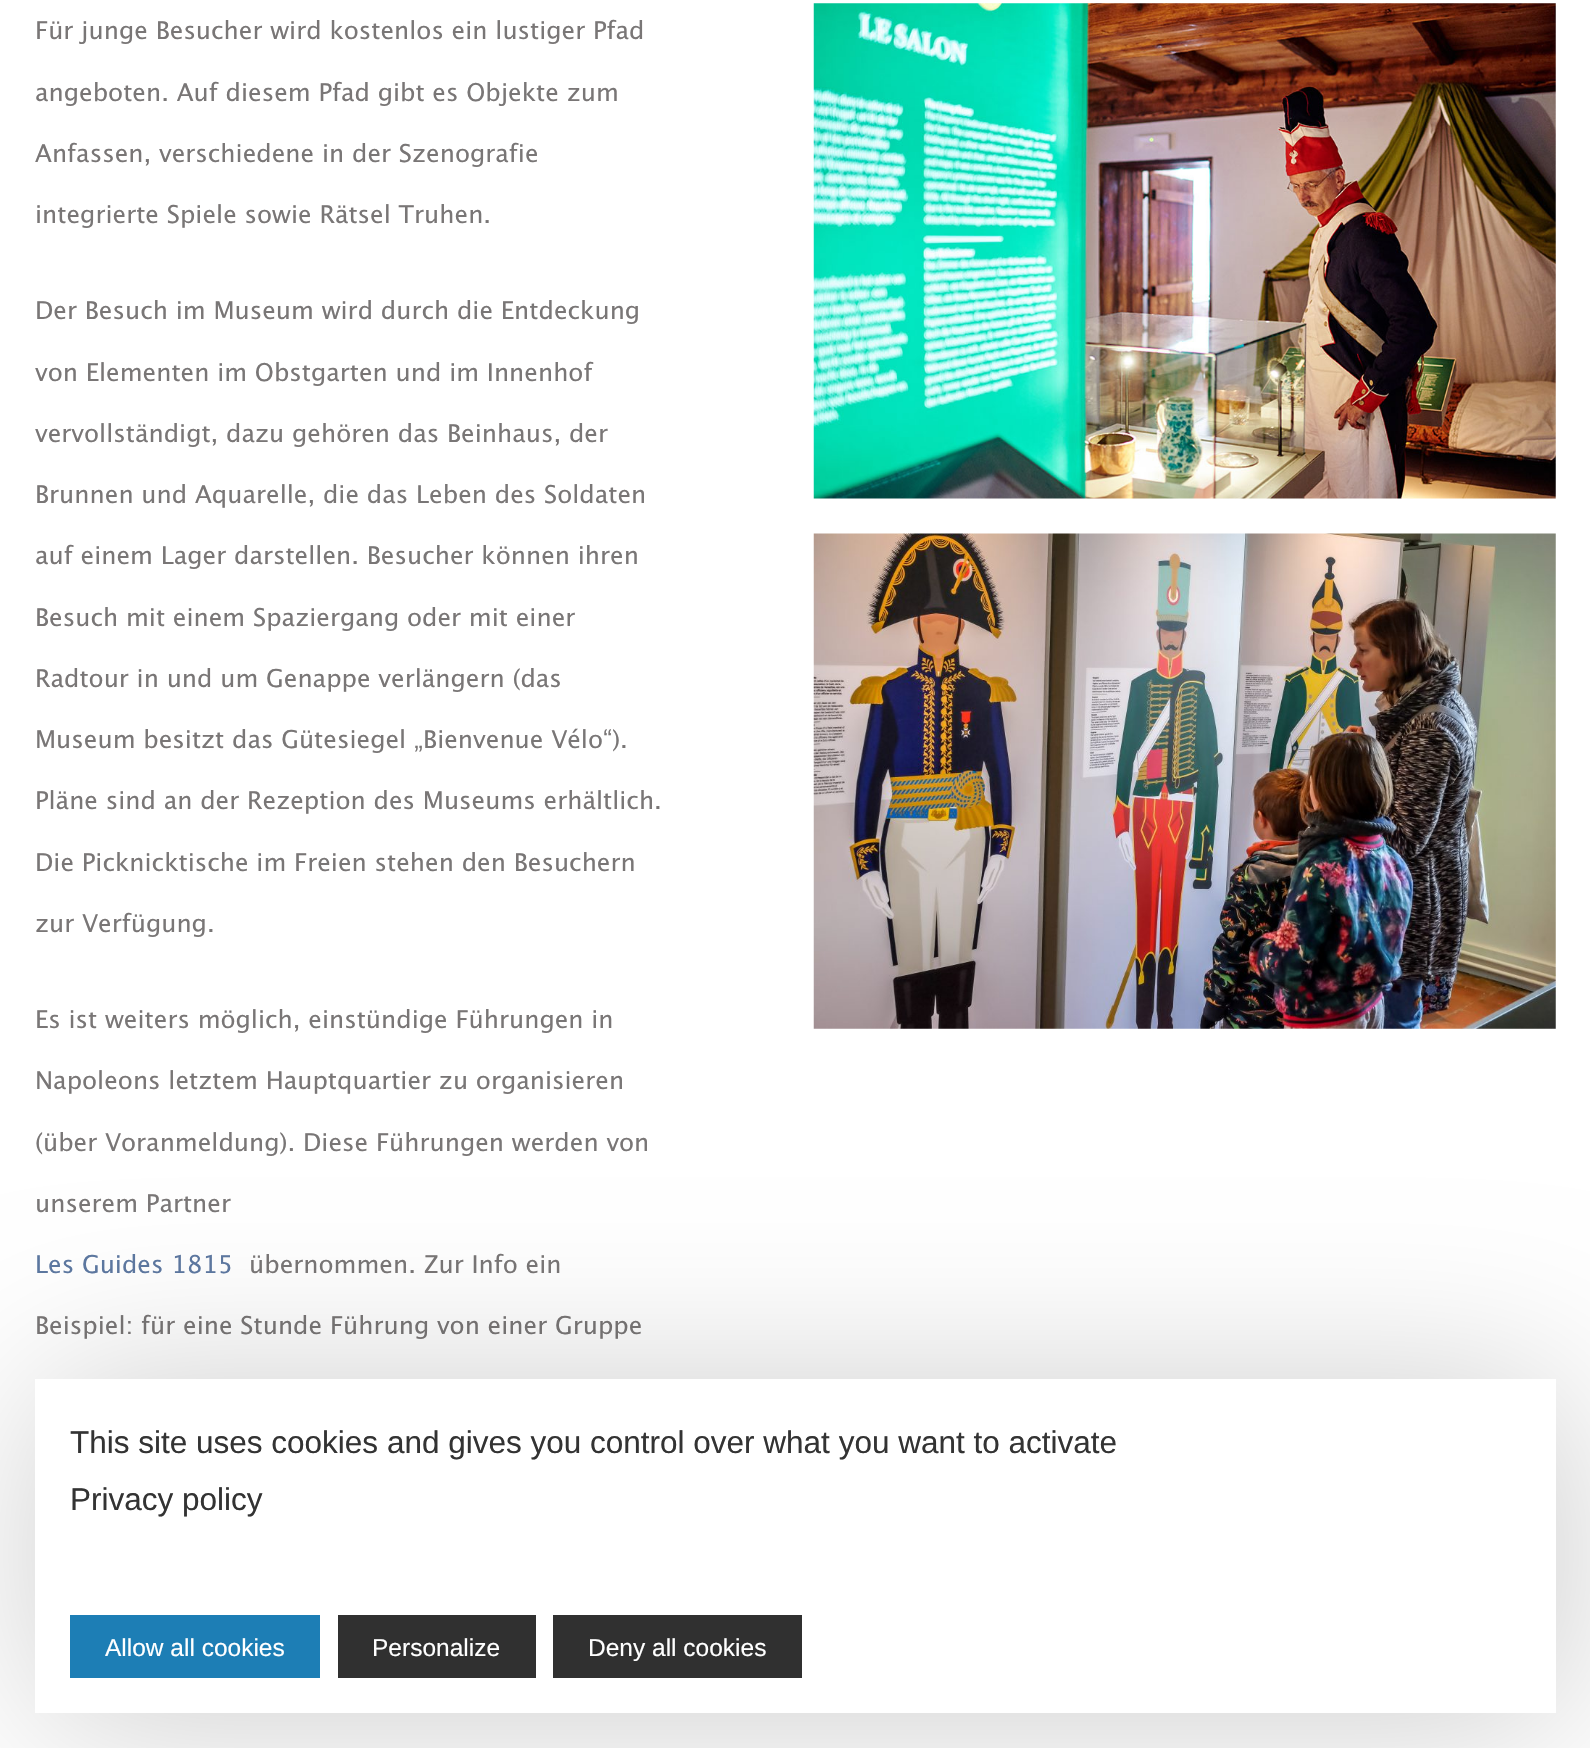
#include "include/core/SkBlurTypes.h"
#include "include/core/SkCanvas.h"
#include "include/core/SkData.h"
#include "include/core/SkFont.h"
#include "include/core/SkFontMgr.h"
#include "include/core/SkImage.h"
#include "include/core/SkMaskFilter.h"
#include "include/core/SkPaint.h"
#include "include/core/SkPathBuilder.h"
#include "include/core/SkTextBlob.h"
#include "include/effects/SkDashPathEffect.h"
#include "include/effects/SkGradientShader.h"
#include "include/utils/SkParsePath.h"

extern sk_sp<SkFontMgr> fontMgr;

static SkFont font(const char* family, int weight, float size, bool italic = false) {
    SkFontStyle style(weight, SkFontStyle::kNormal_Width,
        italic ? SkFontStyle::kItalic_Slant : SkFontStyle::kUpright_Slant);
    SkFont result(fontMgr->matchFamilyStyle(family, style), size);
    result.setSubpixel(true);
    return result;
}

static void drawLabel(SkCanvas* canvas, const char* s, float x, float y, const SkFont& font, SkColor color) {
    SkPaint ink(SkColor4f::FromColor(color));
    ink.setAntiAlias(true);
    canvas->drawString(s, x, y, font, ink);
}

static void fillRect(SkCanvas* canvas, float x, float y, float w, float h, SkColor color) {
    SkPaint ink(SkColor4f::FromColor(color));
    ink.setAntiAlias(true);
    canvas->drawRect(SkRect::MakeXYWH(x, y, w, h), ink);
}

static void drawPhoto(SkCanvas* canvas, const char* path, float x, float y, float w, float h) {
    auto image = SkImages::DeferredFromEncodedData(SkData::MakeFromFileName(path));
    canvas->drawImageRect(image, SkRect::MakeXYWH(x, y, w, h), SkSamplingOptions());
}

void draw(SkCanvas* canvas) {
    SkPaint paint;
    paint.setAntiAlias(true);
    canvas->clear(0xFFFFFFFF);
    SkFont font1 = font("Lucida Grande", 400, 24.5f);
    drawLabel(canvas, "Für junge Besucher wird kostenlos ein lustiger Pfad", 35, 39, font1, 0xFF797676);
    drawLabel(canvas, "angeboten. Auf diesem Pfad gibt es Objekte zum", 35, 101, font1, 0xFF797676);
    drawLabel(canvas, "Anfassen, verschiedene in der Szenografie", 35, 162, font1, 0xFF797676);
    drawLabel(canvas, "integrierte Spiele sowie Rätsel Truhen.", 35, 223, font1, 0xFF797676);
    drawLabel(canvas, "Der Besuch im Museum wird durch die Entdeckung", 35, 319, font1, 0xFF797676);
    drawLabel(canvas, "von Elementen im Obstgarten und im Innenhof", 35, 381, font1, 0xFF797676);
    drawLabel(canvas, "vervollständigt, dazu gehören das Beinhaus, der", 35, 442, font1, 0xFF797676);
    drawLabel(canvas, "Brunnen und Aquarelle, die das Leben des Soldaten", 35, 503, font1, 0xFF797676);
    drawLabel(canvas, "auf einem Lager darstellen. Besucher können ihren", 35, 564, font1, 0xFF797676);
    drawLabel(canvas, "Besuch mit einem Spaziergang oder mit einer", 35, 626, font1, 0xFF797676);
    drawLabel(canvas, "Radtour in und um Genappe verlängern (das", 35, 687, font1, 0xFF797676);
    drawLabel(canvas, "Museum besitzt das Gütesiegel „Bienvenue Vélo“).", 35, 748, font1, 0xFF797676);
    drawLabel(canvas, "Pläne sind an der Rezeption des Museums erhältlich.", 35, 809, font1, 0xFF797676);
    drawLabel(canvas, "Die Picknicktische im Freien stehen den Besuchern", 35, 871, font1, 0xFF797676);
    drawLabel(canvas, "zur Verfügung.", 35, 932, font1, 0xFF797676);
    drawLabel(canvas, "Es ist weiters möglich, einstündige Führungen in", 35, 1028, font1, 0xFF797676);
    drawLabel(canvas, "Napoleons letztem Hauptquartier zu organisieren", 35, 1089, font1, 0xFF797676);
    drawLabel(canvas, "(über Voranmeldung). Diese Führungen werden von", 35, 1151, font1, 0xFF797676);
    drawLabel(canvas, "unserem Partner", 35, 1212, font1, 0xFF797676);
    drawLabel(canvas, "Les Guides 1815", 35, 1273, font1, 0xFF5D78A1);
    drawLabel(canvas, "übernommen. Zur Info ein", 249, 1273, font1, 0xFF797676);
    drawLabel(canvas, "Beispiel: für eine Stunde Führung von einer Gruppe", 35, 1334, font1, 0xFF797676);
    drawPhoto(canvas, "assets/img1.png", 813, 3, 743, 496);
    drawPhoto(canvas, "assets/img2.png", 813, 533, 743, 496);
    paint.setColor(0x33000000);
    paint.setMaskFilter(SkMaskFilter::MakeBlur(kNormal_SkBlurStyle, 87.5f));
    canvas->drawRect(SkRect::MakeXYWH(42, 1386, 1521, 334), paint);
    paint.setMaskFilter(nullptr);
    fillRect(canvas, 35, 1379, 1521, 334, 0xFFFFFFFF);
    SkFont font2 = font("Liberation Sans", 400, 31.5f);
    drawLabel(canvas, "This site uses cookies and gives you control over what you want to activate", 70, 1453, font2, 0xFF333333);
    drawLabel(canvas, "Privacy policy", 70, 1510, font2, 0xFF333333);
    fillRect(canvas, 70, 1615, 250, 63, 0xFF1D7EB5);
    SkFont font3 = font("Liberation Sans", 400, 24.5f);
    drawLabel(canvas, "Allow all cookies", 105, 1656, font3, 0xFFFFFFFF);
    fillRect(canvas, 338, 1615, 198, 63, 0xFF303030);
    drawLabel(canvas, "Personalize", 372, 1656, font3, 0xFFFFFFFF);
    fillRect(canvas, 553, 1615, 249, 63, 0xFF303030);
    drawLabel(canvas, "Deny all cookies", 588, 1656, font3, 0xFFFFFFFF);
}
